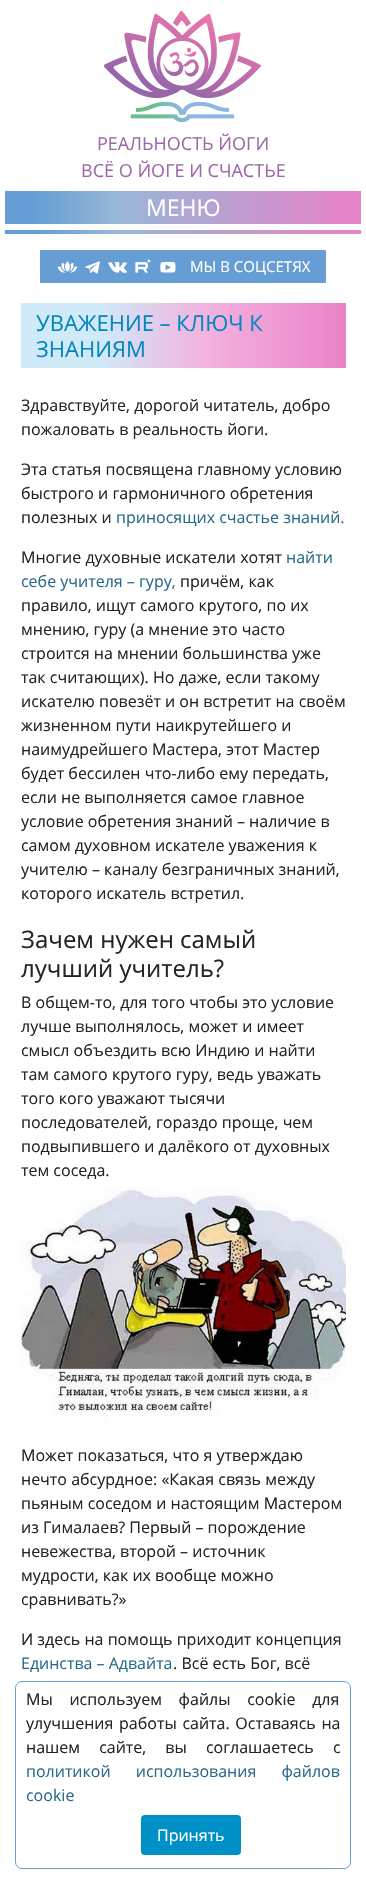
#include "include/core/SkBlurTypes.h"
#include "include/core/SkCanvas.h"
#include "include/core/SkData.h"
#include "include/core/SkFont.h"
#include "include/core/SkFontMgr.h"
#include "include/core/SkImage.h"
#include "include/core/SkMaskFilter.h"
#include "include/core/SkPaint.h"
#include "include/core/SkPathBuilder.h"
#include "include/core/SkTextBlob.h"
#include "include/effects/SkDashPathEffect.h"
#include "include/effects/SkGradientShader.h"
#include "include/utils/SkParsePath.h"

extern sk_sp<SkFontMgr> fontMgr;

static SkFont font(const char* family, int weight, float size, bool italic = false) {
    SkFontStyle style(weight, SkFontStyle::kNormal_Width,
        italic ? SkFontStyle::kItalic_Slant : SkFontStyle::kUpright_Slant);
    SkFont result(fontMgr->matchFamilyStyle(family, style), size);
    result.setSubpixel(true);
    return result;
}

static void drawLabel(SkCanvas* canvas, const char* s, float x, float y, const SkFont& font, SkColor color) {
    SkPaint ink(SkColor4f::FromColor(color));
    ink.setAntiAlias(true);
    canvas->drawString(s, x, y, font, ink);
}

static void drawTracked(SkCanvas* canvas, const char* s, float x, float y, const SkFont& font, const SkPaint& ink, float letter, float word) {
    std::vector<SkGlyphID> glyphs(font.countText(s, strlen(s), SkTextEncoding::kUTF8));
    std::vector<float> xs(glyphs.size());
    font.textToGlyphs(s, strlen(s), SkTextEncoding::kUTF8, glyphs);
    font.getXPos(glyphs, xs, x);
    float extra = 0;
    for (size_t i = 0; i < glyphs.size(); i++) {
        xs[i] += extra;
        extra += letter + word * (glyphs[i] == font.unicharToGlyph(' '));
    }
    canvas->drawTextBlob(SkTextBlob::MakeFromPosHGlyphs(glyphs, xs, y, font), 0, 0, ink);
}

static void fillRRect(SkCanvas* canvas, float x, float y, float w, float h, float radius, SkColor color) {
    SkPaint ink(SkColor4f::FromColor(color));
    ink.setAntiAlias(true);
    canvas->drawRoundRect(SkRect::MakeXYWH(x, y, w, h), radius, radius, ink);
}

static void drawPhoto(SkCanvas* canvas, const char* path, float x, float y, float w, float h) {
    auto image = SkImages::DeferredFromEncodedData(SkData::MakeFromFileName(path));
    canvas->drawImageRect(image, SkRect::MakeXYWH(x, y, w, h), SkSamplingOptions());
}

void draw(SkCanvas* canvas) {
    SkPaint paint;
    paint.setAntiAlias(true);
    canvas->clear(0xFFFFFFFF);
    {
        const SkColor colors[] = {0xFF659DD4, 0xFF96B7D7, 0xFFE982C8};
        const float stops[] = {0.08f, 0.31f, 1};
        const SkPoint ends[] = {{5, 208}, {361, 208}};
        paint.setShader(SkGradientShader::MakeLinear(ends, colors, stops, 3, SkTileMode::kClamp));
        paint.setAlpha(255);
    }
    canvas->drawRect(SkRect::MakeXYWH(5, 191, 356, 33), paint);
    drawPhoto(canvas, "assets/img1.png", 104, 11, 157, 111);
    SkFont font1 = font("Open Sans", 400, 18);
    drawLabel(canvas, "РЕАЛЬНОСТЬ ЙОГИ", 97, 150, font1, 0xFF9D69A9);
    drawLabel(canvas, "ВСЁ О ЙОГЕ И СЧАСТЬЕ", 81, 177, font1, 0xFF9D69A9);
    SkFont font2 = font("Open Sans", 400, 23);
    drawLabel(canvas, "МЕНЮ", 146, 216, font2, 0xFFFFFFFF);
    {
        const SkColor colors[] = {0xFF659DD4, 0xFF96B7D7, 0xFFE982C8};
        const float stops[] = {0.08f, 0.31f, 1};
        const SkPoint ends[] = {{5, 232}, {361, 232}};
        paint.setShader(SkGradientShader::MakeLinear(ends, colors, stops, 3, SkTileMode::kClamp));
        paint.setAlpha(255);
    }
    canvas->drawRect(SkRect::MakeXYWH(5, 230, 356, 4), paint);
    fillRRect(canvas, 40, 250, 286, 33, 1, 0xFF659DD4);
    drawPhoto(canvas, "assets/img2.png", 57, 261, 21, 12);
    drawPhoto(canvas, "assets/img3.png", 85, 261, 15, 13);
    drawPhoto(canvas, "assets/img4.png", 108, 261, 19, 12);
    drawPhoto(canvas, "assets/img5.png", 135, 259, 16, 14);
    drawPhoto(canvas, "assets/img6.png", 160, 261, 16, 12);
    SkFont font3 = font("Open Sans", 400, 15);
    drawLabel(canvas, "МЫ В СОЦСЕТЯХ", 190, 272, font3, 0xFFFFFFFF);
    {
        const SkColor colors[] = {0xFFD0EAF9, 0xFFF3B2DF, 0xFFE982C8};
        const float stops[] = {0.24f, 0.57f, 1};
        const SkPoint ends[] = {{21, 336}, {346, 336}};
        paint.setShader(SkGradientShader::MakeLinear(ends, colors, stops, 3, SkTileMode::kClamp));
        paint.setAlpha(255);
    }
    canvas->drawRect(SkRect::MakeXYWH(21, 303, 325, 65), paint);
    SkFont font4 = font("Open Sans", 400, 22);
    drawLabel(canvas, "УВАЖЕНИЕ – КЛЮЧ К", 36, 331, font4, 0xFF0188BC);
    drawLabel(canvas, "ЗНАНИЯМ", 36, 357, font4, 0xFF0188BC);
    SkFont font5 = font("Open Sans", 400, 16);
    drawLabel(canvas, "Здравствуйте, дорогой читатель, добро", 21, 411, font5, 0xFF212529);
    drawLabel(canvas, "пожаловать в реальность йоги.", 21, 435, font5, 0xFF212529);
    drawLabel(canvas, "Эта статья посвящена главному условию", 21, 475, font5, 0xFF212529);
    drawLabel(canvas, "быстрого и гармоничного обретения", 21, 499, font5, 0xFF212529);
    drawLabel(canvas, "полезных и", 21, 523, font5, 0xFF212529);
    drawLabel(canvas, "приносящих счастье знаний.", 116, 523, font5, 0xFF27698B);
    drawLabel(canvas, "Многие духовные искатели хотят", 21, 563, font5, 0xFF212529);
    drawLabel(canvas, "найти", 286, 563, font5, 0xFF27698B);
    drawLabel(canvas, "себе учителя – гуру,", 21, 587, font5, 0xFF27698B);
    drawLabel(canvas, "причём, как", 180, 587, font5, 0xFF212529);
    drawLabel(canvas, "правило, ищут самого крутого, по их", 21, 611, font5, 0xFF212529);
    drawLabel(canvas, "мнению, гуру (а мнение это часто", 21, 635, font5, 0xFF212529);
    drawLabel(canvas, "строится на мнении большинства уже", 21, 659, font5, 0xFF212529);
    drawLabel(canvas, "так считающих). Но даже, если такому", 21, 683, font5, 0xFF212529);
    drawLabel(canvas, "искателю повезёт и он встретит на своём", 21, 707, font5, 0xFF212529);
    drawLabel(canvas, "жизненном пути наикрутейшего и", 21, 731, font5, 0xFF212529);
    drawLabel(canvas, "наимудрейшего Мастера, этот Мастер", 21, 755, font5, 0xFF212529);
    drawLabel(canvas, "будет бессилен что-либо ему передать,", 21, 779, font5, 0xFF212529);
    drawLabel(canvas, "если не выполняется самое главное", 21, 803, font5, 0xFF212529);
    drawLabel(canvas, "условие обретения знаний – наличие в", 21, 827, font5, 0xFF212529);
    drawLabel(canvas, "самом духовном искателе уважения к", 21, 851, font5, 0xFF212529);
    drawLabel(canvas, "учителю – каналу безграничных знаний,", 21, 875, font5, 0xFF212529);
    drawLabel(canvas, "которого искатель встретил.", 21, 899, font5, 0xFF212529);
    SkFont font6 = font("Open Sans", 400, 24);
    drawLabel(canvas, "Зачем нужен самый", 21, 948, font6, 0xFF212529);
    drawLabel(canvas, "лучший учитель?", 21, 977, font6, 0xFF212529);
    drawLabel(canvas, "В общем-то, для того чтобы это условие", 21, 1008, font5, 0xFF212529);
    drawLabel(canvas, "лучше выполнялось, может и имеет", 21, 1032, font5, 0xFF212529);
    drawLabel(canvas, "смысл объездить всю Индию и найти", 21, 1056, font5, 0xFF212529);
    drawLabel(canvas, "там самого крутого гуру, ведь уважать", 21, 1080, font5, 0xFF212529);
    drawLabel(canvas, "того кого уважают тысячи", 21, 1104, font5, 0xFF212529);
    drawLabel(canvas, "последователей, гораздо проще, чем", 21, 1128, font5, 0xFF212529);
    drawLabel(canvas, "подвыпившего и далёкого от духовных", 21, 1152, font5, 0xFF212529);
    drawLabel(canvas, "тем соседа.", 21, 1176, font5, 0xFF212529);
    drawPhoto(canvas, "assets/img7.png", 21, 1187, 325, 235);
    drawLabel(canvas, "Может показаться, что я утверждаю", 21, 1461, font5, 0xFF212529);
    drawLabel(canvas, "нечто абсурдное: «Какая связь между", 21, 1485, font5, 0xFF212529);
    drawLabel(canvas, "пьяным соседом и настоящим Мастером", 21, 1509, font5, 0xFF212529);
    drawLabel(canvas, "из Гималаев? Первый – порождение", 21, 1533, font5, 0xFF212529);
    drawLabel(canvas, "невежества, второй – источник", 21, 1557, font5, 0xFF212529);
    drawLabel(canvas, "мудрости, как их вообще можно", 21, 1581, font5, 0xFF212529);
    drawLabel(canvas, "сравнивать?»", 21, 1605, font5, 0xFF212529);
    drawLabel(canvas, "И здесь на помощь приходит концепция", 21, 1645, font5, 0xFF212529);
    drawLabel(canvas, "Единства – Адвайта", 21, 1669, font5, 0xFF27698B);
    drawLabel(canvas, ". Всё есть Бог, всё", 173, 1669, font5, 0xFF212529);
    paint.setStroke(true);
    paint.setStrokeWidth(1);
    paint.setShader(nullptr);
    paint.setColor(0xFF659DD4);
    canvas->drawRoundRect(SkRect::MakeXYWH(15.5f, 1681.5f, 335, 187), 6.5f, 6.5f, paint);
    paint.setStroke(false);
    paint.setColor(0xFF212529);
    drawTracked(canvas, "Мы используем файлы cookie для", 26, 1705, font5, paint, 0, 12.5f);
    drawTracked(canvas, "улучшения работы сайта. Оставаясь на", 26, 1729, font5, paint, 0, 1.5f);
    drawTracked(canvas, "нашем сайте, вы соглашаетесь с", 26, 1753, font5, paint, 0, 15);
    paint.setColor(0xFF27698B);
    drawTracked(canvas, "политикой использования файлов", 26, 1777, font5, paint, 0, 21);
    drawLabel(canvas, "cookie", 26, 1801, font5, 0xFF27698B);
    fillRRect(canvas, 141, 1815, 100, 40, 4, 0xFF0090C8);
    drawLabel(canvas, "Принять", 157, 1841, font5, 0xFFFFFFFF);
}
